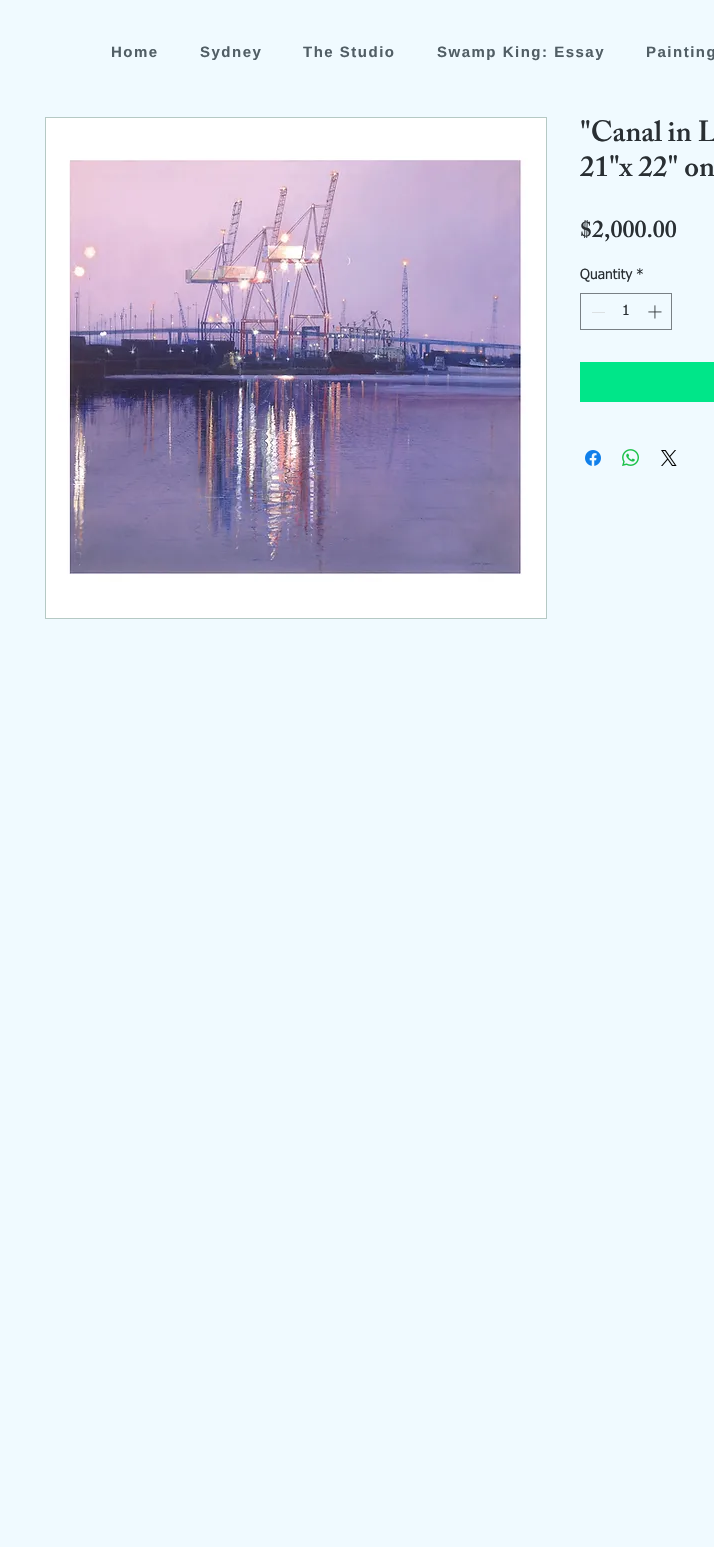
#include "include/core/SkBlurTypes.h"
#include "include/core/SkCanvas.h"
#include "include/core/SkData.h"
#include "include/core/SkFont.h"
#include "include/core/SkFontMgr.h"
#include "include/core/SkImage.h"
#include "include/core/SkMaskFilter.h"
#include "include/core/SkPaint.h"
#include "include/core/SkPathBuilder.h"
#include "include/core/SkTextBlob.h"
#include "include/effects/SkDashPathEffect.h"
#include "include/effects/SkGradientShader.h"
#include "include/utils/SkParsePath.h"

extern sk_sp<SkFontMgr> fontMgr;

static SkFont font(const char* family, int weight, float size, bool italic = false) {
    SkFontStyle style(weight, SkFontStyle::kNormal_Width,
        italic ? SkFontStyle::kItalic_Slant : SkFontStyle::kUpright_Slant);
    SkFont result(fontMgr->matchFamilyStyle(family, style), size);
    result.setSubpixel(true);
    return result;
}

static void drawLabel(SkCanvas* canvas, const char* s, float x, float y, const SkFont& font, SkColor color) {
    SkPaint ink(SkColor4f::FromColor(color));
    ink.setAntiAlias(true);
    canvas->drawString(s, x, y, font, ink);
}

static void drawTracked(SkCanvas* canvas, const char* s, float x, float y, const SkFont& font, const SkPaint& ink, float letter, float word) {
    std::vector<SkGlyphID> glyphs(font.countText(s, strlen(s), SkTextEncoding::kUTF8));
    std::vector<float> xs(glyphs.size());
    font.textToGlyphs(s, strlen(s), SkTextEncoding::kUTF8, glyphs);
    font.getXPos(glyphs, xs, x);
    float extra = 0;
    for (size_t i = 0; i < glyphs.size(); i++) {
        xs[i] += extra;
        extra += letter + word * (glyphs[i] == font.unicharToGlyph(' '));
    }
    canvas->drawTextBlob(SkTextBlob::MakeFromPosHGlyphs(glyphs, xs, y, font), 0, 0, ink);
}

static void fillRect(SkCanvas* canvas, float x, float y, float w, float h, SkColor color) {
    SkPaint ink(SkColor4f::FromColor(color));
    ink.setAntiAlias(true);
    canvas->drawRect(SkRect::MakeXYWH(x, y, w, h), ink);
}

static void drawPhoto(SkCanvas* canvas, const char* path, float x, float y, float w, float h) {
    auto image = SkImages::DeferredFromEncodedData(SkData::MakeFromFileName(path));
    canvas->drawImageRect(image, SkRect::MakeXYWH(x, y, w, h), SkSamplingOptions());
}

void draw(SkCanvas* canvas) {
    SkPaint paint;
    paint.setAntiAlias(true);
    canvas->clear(0xFFF0FAFF);
    SkFont font1 = font("Liberation Sans", 700, 15);
    paint.setColor(0xFF515E65);
    drawTracked(canvas, "Home", 111, 57, font1, paint, 1.5f, 0);
    drawTracked(canvas, "Sydney", 200, 57, font1, paint, 1.5f, 0);
    drawTracked(canvas, "The Studio", 303, 57, font1, paint, 1.5f, 0);
    drawTracked(canvas, "Swamp King: Essay", 437, 57, font1, paint, 1.5f, 0);
    drawTracked(canvas, "Painting", 646, 57, font1, paint, 1.5f, 0);
    paint.setStroke(true);
    paint.setStrokeWidth(1);
    paint.setColor(0xFFB5C9C4);
    canvas->drawRect(SkRect::MakeXYWH(45.5f, 117.5f, 501, 501), paint);
    drawPhoto(canvas, "assets/img1.png", 46, 118, 500, 500);
    SkFont font2 = font("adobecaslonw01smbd", 600, 29);
    drawLabel(canvas, "\"Canal in L", 580, 141, font2, 0xFF292F33);
    drawLabel(canvas, "21\"x 22\" on", 580, 176, font2, 0xFF292F33);
    SkFont font3 = font("adobecaslonw01smbd", 600, 24);
    drawLabel(canvas, "$2,000.00", 580, 237, font3, 0xFF292F33);
    SkFont font4 = font("tahoma", 400, 14);
    drawLabel(canvas, "Quantity", 580, 279, font4, 0xFF292F33);
    drawLabel(canvas, "*", 636, 279, font4, 0xFF292F33);
    paint.setColor(0xFF798085);
    canvas->drawRect(SkRect::MakeXYWH(580.5f, 293.5f, 91, 36), paint);
    fillRect(canvas, 592, 312, 13, 1, 0xFFDCE1E3);
    drawLabel(canvas, "1", 622, 315, font4, 0xFF292F33);
    drawPhoto(canvas, "assets/img2.png", 648, 305, 14, 14);
    fillRect(canvas, 580, 362, 134, 40, 0xFF00E689);
    drawPhoto(canvas, "assets/img3.png", 585, 450, 16, 16);
    drawPhoto(canvas, "assets/img4.png", 622, 449, 17, 17);
    drawPhoto(canvas, "assets/img5.png", 661, 450, 16, 16);
}
